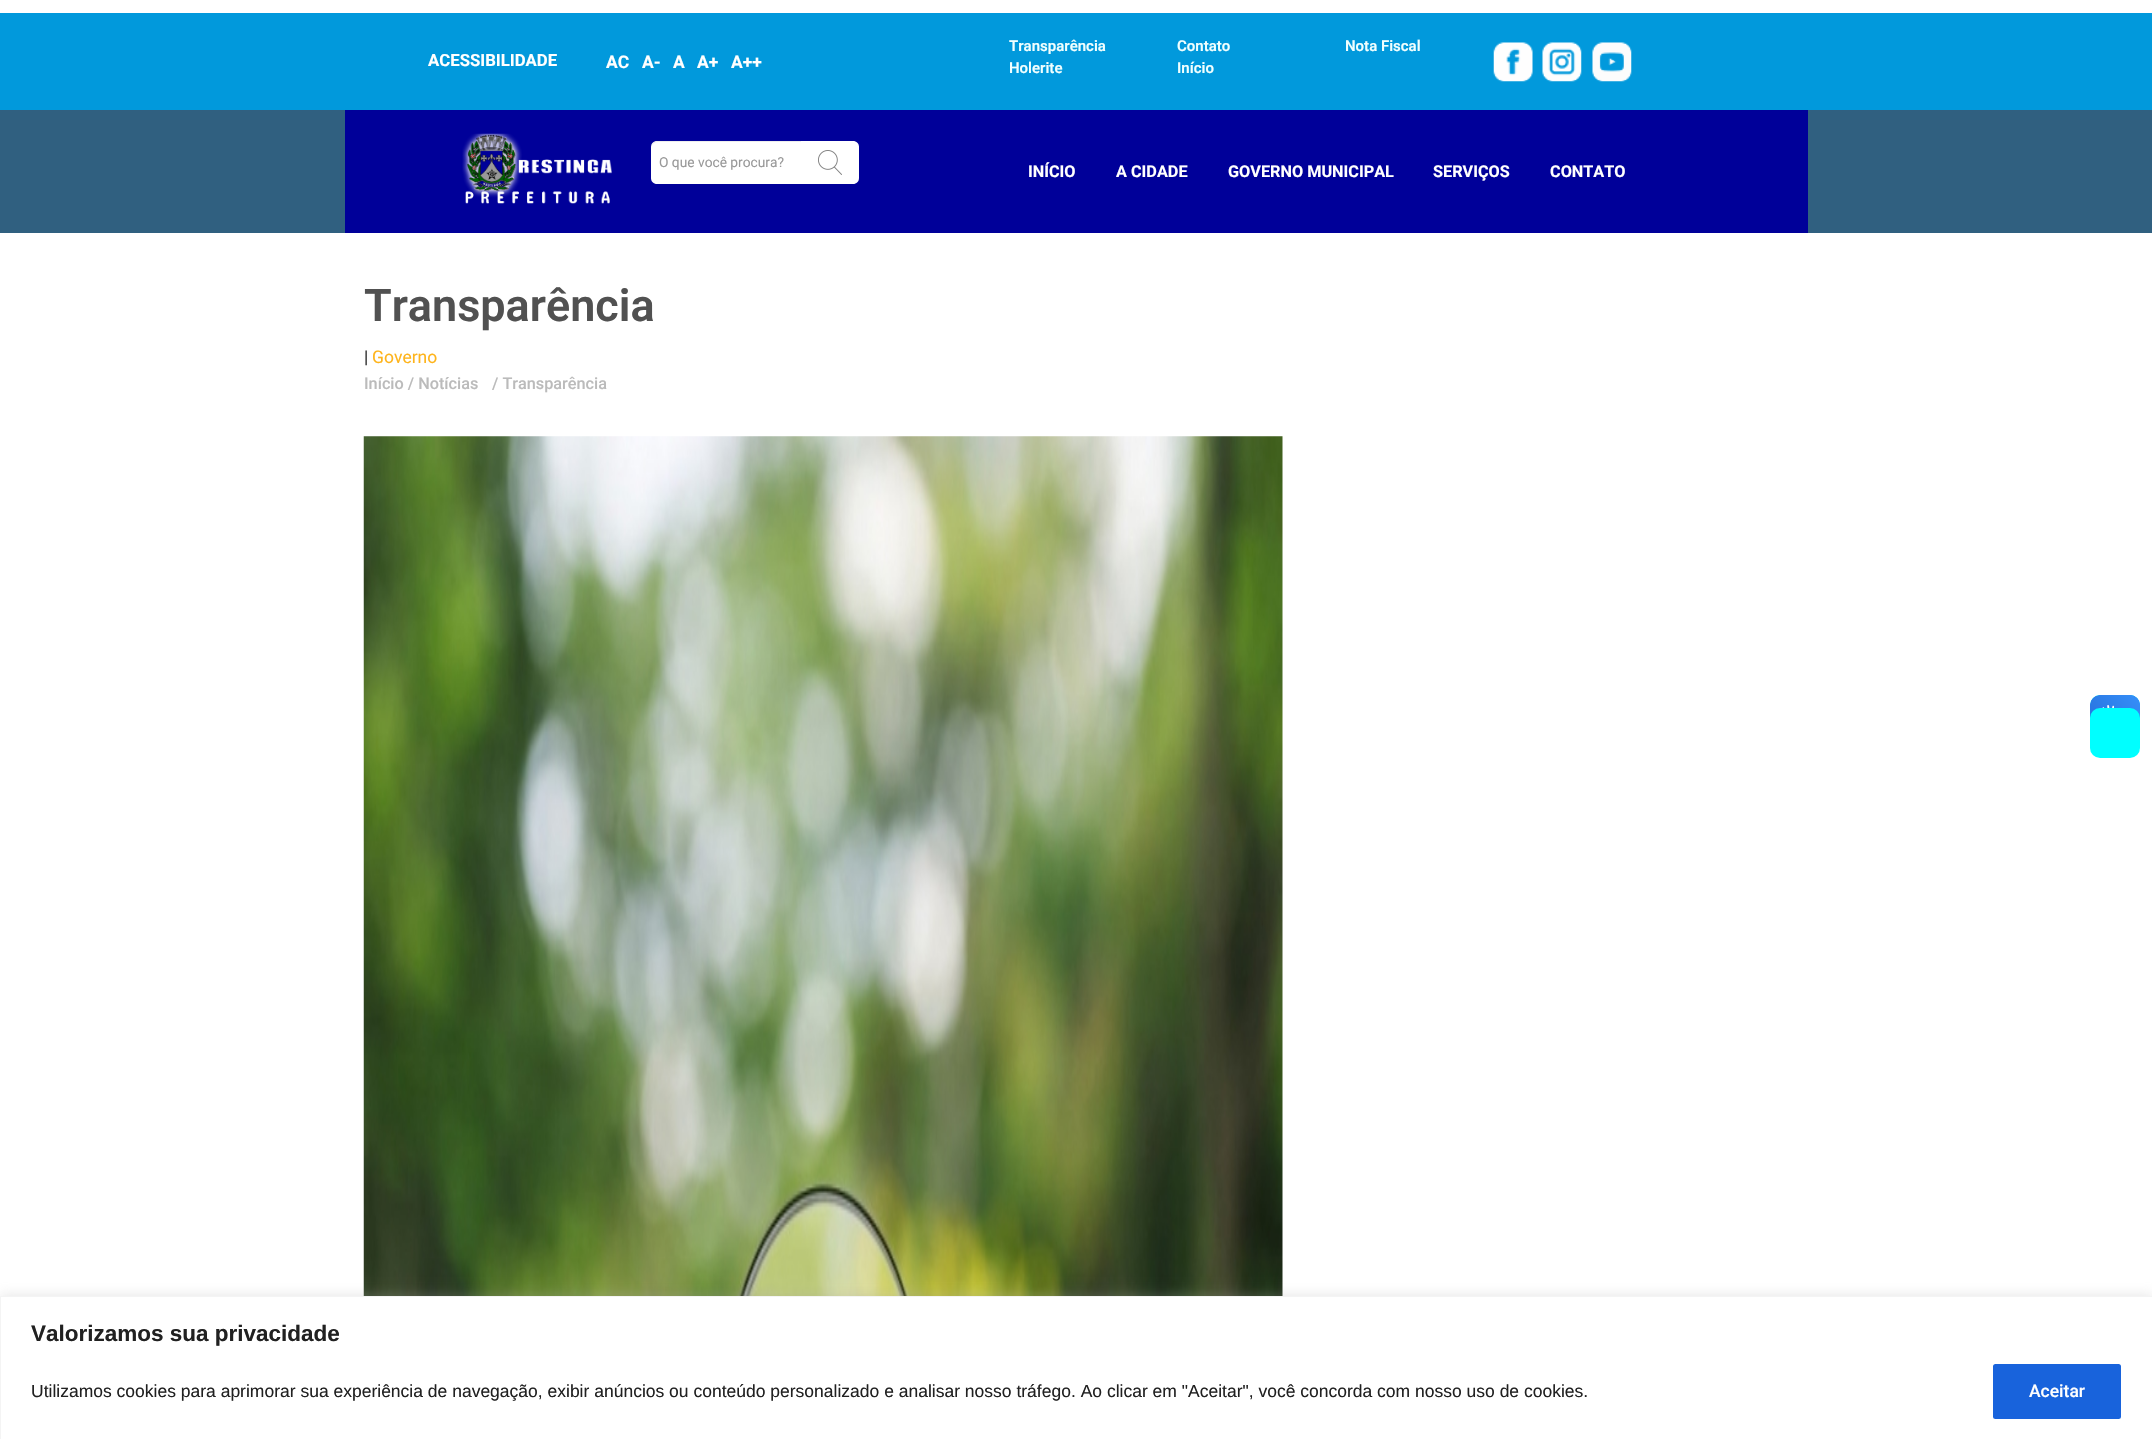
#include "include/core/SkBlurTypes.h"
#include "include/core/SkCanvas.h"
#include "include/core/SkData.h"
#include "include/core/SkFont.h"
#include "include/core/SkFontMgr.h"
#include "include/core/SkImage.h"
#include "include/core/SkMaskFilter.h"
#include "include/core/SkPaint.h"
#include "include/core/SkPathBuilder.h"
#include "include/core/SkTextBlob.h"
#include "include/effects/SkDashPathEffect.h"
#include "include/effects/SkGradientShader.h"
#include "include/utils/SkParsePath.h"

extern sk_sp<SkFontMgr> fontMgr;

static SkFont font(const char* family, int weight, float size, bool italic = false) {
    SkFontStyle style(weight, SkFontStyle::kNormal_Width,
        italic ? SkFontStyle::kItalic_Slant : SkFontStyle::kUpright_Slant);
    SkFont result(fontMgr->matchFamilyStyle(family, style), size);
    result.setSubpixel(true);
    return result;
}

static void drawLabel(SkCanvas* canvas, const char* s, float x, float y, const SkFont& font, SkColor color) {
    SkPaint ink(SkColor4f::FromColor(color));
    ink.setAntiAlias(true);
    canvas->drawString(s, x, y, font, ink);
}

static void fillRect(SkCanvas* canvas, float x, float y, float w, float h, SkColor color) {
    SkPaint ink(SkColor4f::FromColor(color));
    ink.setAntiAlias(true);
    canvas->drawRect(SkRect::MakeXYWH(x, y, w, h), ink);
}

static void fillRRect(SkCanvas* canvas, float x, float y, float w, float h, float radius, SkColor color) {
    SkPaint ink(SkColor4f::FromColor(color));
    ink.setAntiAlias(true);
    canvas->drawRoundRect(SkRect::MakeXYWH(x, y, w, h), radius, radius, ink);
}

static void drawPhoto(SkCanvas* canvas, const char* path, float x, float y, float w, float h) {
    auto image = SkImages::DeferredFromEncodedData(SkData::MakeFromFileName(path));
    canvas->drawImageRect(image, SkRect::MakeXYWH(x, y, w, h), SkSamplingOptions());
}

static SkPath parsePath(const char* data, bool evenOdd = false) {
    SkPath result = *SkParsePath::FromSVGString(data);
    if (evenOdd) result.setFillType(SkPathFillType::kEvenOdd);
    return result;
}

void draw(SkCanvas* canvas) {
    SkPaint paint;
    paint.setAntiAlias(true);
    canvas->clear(0xFFFFFFFF);
    fillRect(canvas, 0, 110, 2152, 123, 0xFF306080);
    fillRect(canvas, 0, 13, 2152, 97, 0xFF0199DC);
    SkFont font1 = font("Roboto", 700, 16.75f);
    drawLabel(canvas, "ACESSIBILIDADE", 428, 66, font1, 0xFFFFFFFF);
    SkFont font2 = font("Roboto", 700, 17.5f);
    drawLabel(canvas, "AC", 606, 68, font2, 0xFFFFFFFF);
    drawLabel(canvas, "A-", 642, 68, font2, 0xFFFFFFFF);
    drawLabel(canvas, "A", 673, 68, font2, 0xFFFFFFFF);
    drawLabel(canvas, "A+", 697, 68, font2, 0xFFFFFFFF);
    drawLabel(canvas, "A++", 731, 68, font2, 0xFFFFFFFF);
    SkFont font3 = font("Roboto", 600, 15);
    drawLabel(canvas, "Transparência", 1009, 51, font3, 0xFFF0FFFF);
    drawLabel(canvas, "Contato", 1177, 51, font3, 0xFFF0FFFF);
    drawLabel(canvas, "Nota Fiscal", 1345, 51, font3, 0xFFF0FFFF);
    drawLabel(canvas, "Holerite", 1009, 73, font3, 0xFFF0FFFF);
    drawLabel(canvas, "Início", 1177, 73, font3, 0xFFF0FFFF);
    drawPhoto(canvas, "assets/img1.png", 1493, 42, 40, 40);
    drawPhoto(canvas, "assets/img2.png", 1542, 42, 40, 40);
    drawPhoto(canvas, "assets/img3.png", 1592, 42, 40, 40);
    fillRect(canvas, 345, 110, 1463, 123, 0xFF000099);
    drawPhoto(canvas, "assets/img4.png", 462, 133, 150, 71);
    paint.setColor(0xFFFFFFFF);
    canvas->drawPath(parsePath("M657 141H801V184H657C653.5 184 651 181.5 651 178V147C651 143.5 653.5 141 657 141Z"), paint);
    paint.setColor(0x12000000);
    canvas->drawPath(parsePath("M658 142H801V141H657C654 141 651 144 651 147V149C651 145 654 142 658 142Z"), paint);
    SkFont font4 = font("Roboto", 400, 13.75f);
    drawLabel(canvas, "O que você procura?", 659, 167, font4, 0xFF999999);
    paint.setColor(0xFFFFFFFF);
    canvas->drawPath(parsePath("M801 141H853C856.5 141 859 143.5 859 147V178C859 181.5 856.5 184 853 184H801Z"), paint);
    drawPhoto(canvas, "assets/img5.png", 818, 150, 24, 25);
    SkFont font5 = font("Roboto", 700, 16.25f);
    drawLabel(canvas, "INÍCIO", 1028, 177, font5, 0xFFFFFFFF);
    drawLabel(canvas, "A CIDADE", 1116, 177, font5, 0xFFFFFFFF);
    drawLabel(canvas, "GOVERNO MUNICIPAL", 1228, 177, font5, 0xFFFFFFFF);
    drawLabel(canvas, "SERVIÇOS", 1433, 177, font5, 0xFFFFFFFF);
    drawLabel(canvas, "CONTATO", 1550, 177, font5, 0xFFFFFFFF);
    SkFont font6 = font("Roboto", 600, 45);
    drawLabel(canvas, "Transparência", 364, 321, font6, 0xFF515151);
    SkFont font7 = font("Roboto", 400, 17.5f);
    drawLabel(canvas, "|", 364, 363, font7, 0xFF333333);
    drawLabel(canvas, "Governo", 372, 363, font7, 0xFFFEB41C);
    SkFont font8 = font("Roboto", 500, 16.25f);
    drawLabel(canvas, "Início / Notícias", 364, 389, font8, 0xFFBBBBBB);
    drawLabel(canvas, "/ Transparência", 492, 389, font8, 0xFFBBBBBB);
    drawPhoto(canvas, "assets/img6.png", 363, 436, 920, 860);
    fillRRect(canvas, 2090, 695, 50, 50, 10, 0xFF00FFFF);
    drawPhoto(canvas, "assets/img7.png", 2090, 695, 50, 10);
    drawPhoto(canvas, "assets/img8.png", 2090, 695, 50, 23);
    paint.setColor(0x4DACABAB);
    paint.setMaskFilter(SkMaskFilter::MakeBlur(kNormal_SkBlurStyle, 6));
    canvas->drawRect(SkRect::MakeXYWH(0, 1295, 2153, 144), paint);
    paint.setMaskFilter(nullptr);
    paint.setColor(0xFFFFFFFF);
    canvas->drawRect(SkRect::MakeXYWH(0.5f, 1296.5f, 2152, 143), paint);
    paint.setStroke(true);
    paint.setStrokeWidth(1);
    paint.setColor(0xFFF4F4F4);
    canvas->drawRect(SkRect::MakeXYWH(0.5f, 1296.5f, 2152, 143), paint);
    SkFont font9 = font("Liberation Sans", 700, 22.5f);
    drawLabel(canvas, "Valorizamos sua privacidade", 31, 1341, font9, 0xFF212121);
    SkFont font10 = font("Liberation Sans", 400, 17.5f);
    drawLabel(canvas, "Utilizamos cookies para aprimorar sua experiência de navegação, exibir anúncios ou conteúdo personalizado e analisar nosso tráfego. Ao clicar em \"Aceitar\", você concorda com nosso uso de cookies.", 31, 1397, font10, 0xFF212121);
    paint.setStroke(false);
    paint.setColor(0xFF1863DC);
    canvas->drawRoundRect(SkRect::MakeXYWH(1994.5f, 1365.5f, 125, 52), 1, 1, paint);
    paint.setStroke(true);
    paint.setStrokeWidth(3);
    canvas->drawRoundRect(SkRect::MakeXYWH(1994.5f, 1365.5f, 125, 52), 1, 1, paint);
    SkFont font11 = font("Roboto", 500, 17.5f);
    drawLabel(canvas, "Aceitar", 2029, 1397, font11, 0xFFFFFFFF);
    fillRRect(canvas, 2090, 708, 50, 50, 10, 0xFF00FFFF);
}
